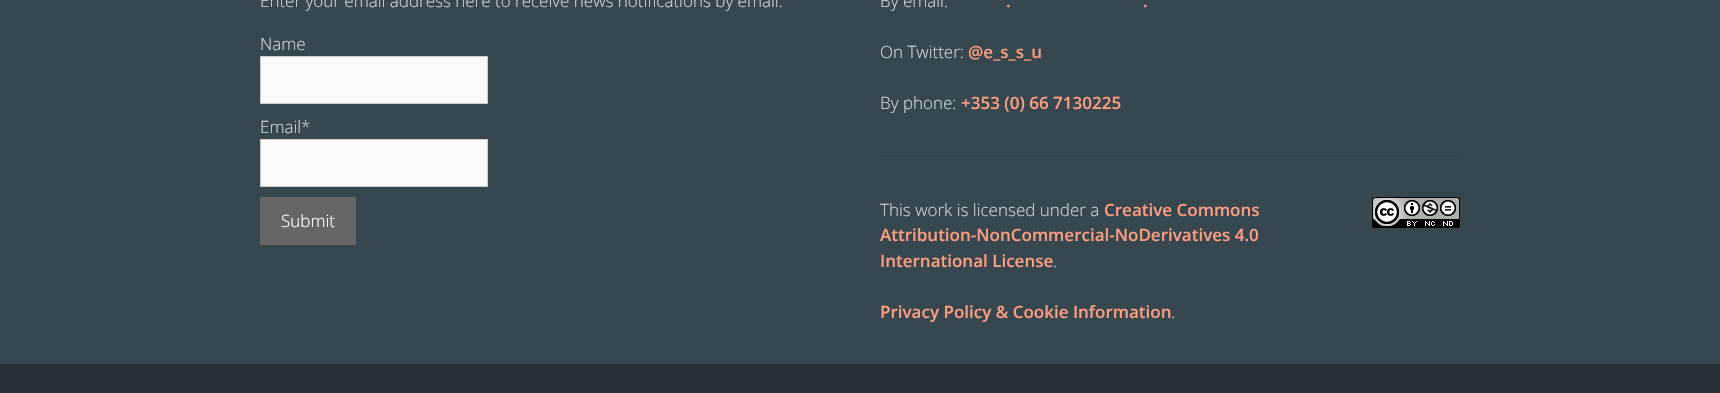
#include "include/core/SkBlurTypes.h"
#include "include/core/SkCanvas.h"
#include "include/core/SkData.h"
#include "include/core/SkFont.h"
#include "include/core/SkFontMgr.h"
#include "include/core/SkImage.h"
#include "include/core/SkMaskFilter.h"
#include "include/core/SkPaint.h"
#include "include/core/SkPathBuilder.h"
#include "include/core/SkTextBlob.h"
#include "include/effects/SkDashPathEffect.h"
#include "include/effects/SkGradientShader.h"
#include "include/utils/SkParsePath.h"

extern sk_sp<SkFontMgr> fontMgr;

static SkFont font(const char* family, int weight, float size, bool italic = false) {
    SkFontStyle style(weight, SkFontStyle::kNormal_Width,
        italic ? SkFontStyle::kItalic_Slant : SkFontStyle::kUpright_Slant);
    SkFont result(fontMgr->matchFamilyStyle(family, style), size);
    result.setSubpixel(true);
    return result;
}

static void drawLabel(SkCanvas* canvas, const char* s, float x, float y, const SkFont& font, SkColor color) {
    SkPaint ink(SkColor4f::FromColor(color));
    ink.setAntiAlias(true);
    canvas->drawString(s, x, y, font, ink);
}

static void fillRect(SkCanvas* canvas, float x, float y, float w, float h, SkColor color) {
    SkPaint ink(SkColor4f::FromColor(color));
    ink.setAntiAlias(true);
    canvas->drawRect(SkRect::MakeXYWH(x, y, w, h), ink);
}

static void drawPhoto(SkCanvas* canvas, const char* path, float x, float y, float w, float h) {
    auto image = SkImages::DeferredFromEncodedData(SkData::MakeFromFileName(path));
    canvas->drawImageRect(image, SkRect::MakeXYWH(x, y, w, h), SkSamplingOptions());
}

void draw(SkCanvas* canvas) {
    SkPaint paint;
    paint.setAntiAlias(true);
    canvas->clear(0xFF37474F);
    SkFont font1 = font("Open Sans", 300, 17);
    drawLabel(canvas, "Enter your email address here to receive news notifications by email.", 260, 7, font1, 0xFFCFD8DC);
    drawLabel(canvas, "Name", 260, 50, font1, 0xFFCFD8DC);
    paint.setColor(0xFFFAFAFA);
    canvas->drawRect(SkRect::MakeXYWH(260.5f, 56.5f, 227, 47), paint);
    paint.setStroke(true);
    paint.setStrokeWidth(1);
    paint.setColor(0xFFCCCCCC);
    canvas->drawRect(SkRect::MakeXYWH(260.5f, 56.5f, 227, 47), paint);
    drawLabel(canvas, "Email*", 260, 133, font1, 0xFFCFD8DC);
    paint.setStroke(false);
    paint.setColor(0xFFFAFAFA);
    canvas->drawRect(SkRect::MakeXYWH(260.5f, 139.5f, 227, 47), paint);
    paint.setStroke(true);
    paint.setColor(0xFFCCCCCC);
    canvas->drawRect(SkRect::MakeXYWH(260.5f, 139.5f, 227, 47), paint);
    fillRect(canvas, 260, 197, 96, 48, 0xFF666666);
    drawLabel(canvas, "Submit", 281, 227, font1, 0xFFFFFFFF);
    drawLabel(canvas, "By email:", 880, 7, font1, 0xFFCFD8DC);
    SkFont font2 = font("Open Sans", 600, 17);
    drawLabel(canvas, ".", 1006, 7, font2, 0xFFFF9E80);
    drawLabel(canvas, ".", 1143, 7, font2, 0xFFFF9E80);
    drawLabel(canvas, "On Twitter:", 880, 58, font1, 0xFFCFD8DC);
    drawLabel(canvas, "@e_s_s_u", 968, 58, font2, 0xFFFF9E80);
    drawLabel(canvas, "By phone:", 880, 109, font1, 0xFFCFD8DC);
    drawLabel(canvas, "+353 (0) 66 7130225", 961, 109, font2, 0xFFFF9E80);
    fillRect(canvas, 880, 156, 580, 1, 0xFF324047);
    drawLabel(canvas, "This work is licensed under a", 880, 216, font1, 0xFFCFD8DC);
    drawLabel(canvas, "Creative Commons", 1104, 216, font2, 0xFFFF9E80);
    drawLabel(canvas, "Attribution-NonCommercial-NoDerivatives 4.0", 880, 241, font2, 0xFFFF9E80);
    drawLabel(canvas, "International License", 880, 267, font2, 0xFFFF9E80);
    drawLabel(canvas, ".", 1053, 267, font1, 0xFFCFD8DC);
    drawPhoto(canvas, "assets/img1.png", 1372, 197, 88, 31);
    drawLabel(canvas, "Privacy Policy & Cookie Information", 880, 318, font2, 0xFFFF9E80);
    drawLabel(canvas, ".", 1171, 318, font1, 0xFFCFD8DC);
    fillRect(canvas, 0, 364, 1720, 29, 0xFF263238);
}
